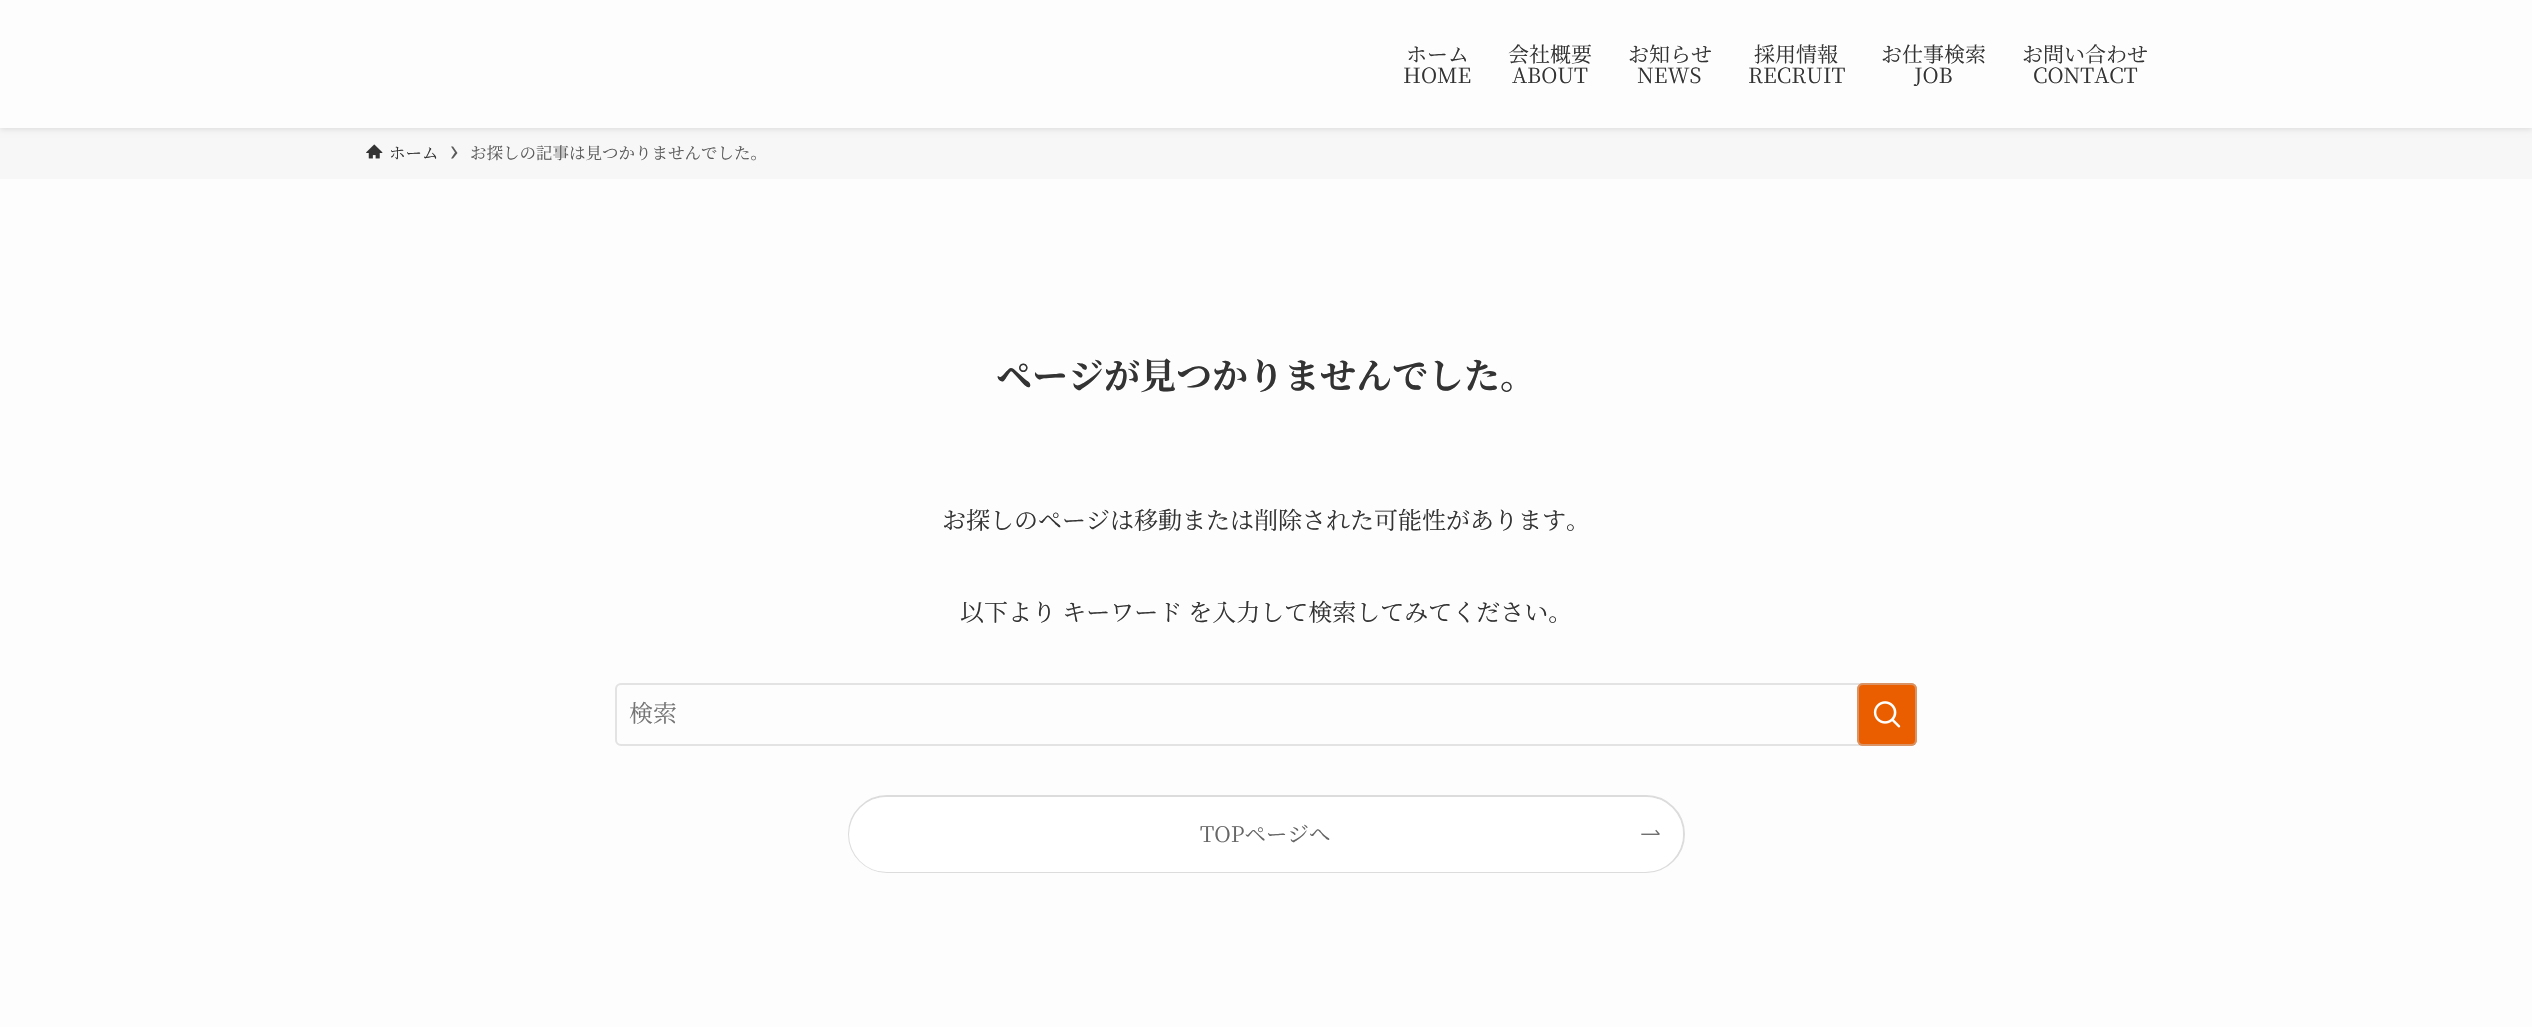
#include "include/core/SkBlurTypes.h"
#include "include/core/SkCanvas.h"
#include "include/core/SkData.h"
#include "include/core/SkFont.h"
#include "include/core/SkFontMgr.h"
#include "include/core/SkImage.h"
#include "include/core/SkMaskFilter.h"
#include "include/core/SkPaint.h"
#include "include/core/SkPathBuilder.h"
#include "include/core/SkTextBlob.h"
#include "include/effects/SkDashPathEffect.h"
#include "include/effects/SkGradientShader.h"
#include "include/utils/SkParsePath.h"

extern sk_sp<SkFontMgr> fontMgr;

static SkFont font(const char* family, int weight, float size, bool italic = false) {
    SkFontStyle style(weight, SkFontStyle::kNormal_Width,
        italic ? SkFontStyle::kItalic_Slant : SkFontStyle::kUpright_Slant);
    SkFont result(fontMgr->matchFamilyStyle(family, style), size);
    result.setSubpixel(true);
    return result;
}

static void drawLabel(SkCanvas* canvas, const char* s, float x, float y, const SkFont& font, SkColor color) {
    SkPaint ink(SkColor4f::FromColor(color));
    ink.setAntiAlias(true);
    canvas->drawString(s, x, y, font, ink);
}

static void fillRect(SkCanvas* canvas, float x, float y, float w, float h, SkColor color) {
    SkPaint ink(SkColor4f::FromColor(color));
    ink.setAntiAlias(true);
    canvas->drawRect(SkRect::MakeXYWH(x, y, w, h), ink);
}

static void fillRRect(SkCanvas* canvas, float x, float y, float w, float h, float radius, SkColor color) {
    SkPaint ink(SkColor4f::FromColor(color));
    ink.setAntiAlias(true);
    canvas->drawRoundRect(SkRect::MakeXYWH(x, y, w, h), radius, radius, ink);
}

static void drawPhoto(SkCanvas* canvas, const char* path, float x, float y, float w, float h) {
    auto image = SkImages::DeferredFromEncodedData(SkData::MakeFromFileName(path));
    canvas->drawImageRect(image, SkRect::MakeXYWH(x, y, w, h), SkSamplingOptions());
}

static SkPath parsePath(const char* data, bool evenOdd = false) {
    SkPath result = *SkParsePath::FromSVGString(data);
    if (evenOdd) result.setFillType(SkPathFillType::kEvenOdd);
    return result;
}

void draw(SkCanvas* canvas) {
    SkPaint paint;
    paint.setAntiAlias(true);
    canvas->clear(0xFFFDFDFD);
    fillRect(canvas, 0, 128, 2532, 51, 0xFFF7F7F7);
    paint.setColor(0x1F000000);
    paint.setMaskFilter(SkMaskFilter::MakeBlur(kNormal_SkBlurStyle, 3));
    canvas->drawRect(SkRect::MakeXYWH(0, 2, 2532, 127), paint);
    paint.setMaskFilter(nullptr);
    fillRect(canvas, 0, 0, 2532, 128, 0xFFFDFDFD);
    SkFont font1 = font("Noto Serif JP", 400, 21);
    drawLabel(canvas, "ホーム", 1406, 62, font1, 0xFF333333);
    drawLabel(canvas, "HOME", 1403, 83, font1, 0xFF333333);
    drawLabel(canvas, "会社概要", 1508, 62, font1, 0xFF333333);
    drawLabel(canvas, "ABOUT", 1512, 83, font1, 0xFF333333);
    drawLabel(canvas, "お知らせ", 1628, 62, font1, 0xFF333333);
    drawLabel(canvas, "NEWS", 1637, 83, font1, 0xFF333333);
    drawLabel(canvas, "採用情報", 1754, 62, font1, 0xFF333333);
    drawLabel(canvas, "RECRUIT", 1748, 83, font1, 0xFF333333);
    drawLabel(canvas, "お仕事検索", 1881, 62, font1, 0xFF333333);
    drawLabel(canvas, "JOB", 1914, 83, font1, 0xFF333333);
    drawLabel(canvas, "お問い合わせ", 2022, 62, font1, 0xFF333333);
    drawLabel(canvas, "CONTACT", 2033, 83, font1, 0xFF333333);
    drawPhoto(canvas, "assets/img1.png", 366, 144, 17, 15);
    SkFont font2 = font("Noto Serif JP", 400, 16.5f);
    drawLabel(canvas, "ホーム", 389, 159, font2, 0xFF333333);
    paint.setColor(0xFF5A5A5A);
    canvas->drawPath(parsePath("M453 146.5H451L455 152.5L451 158.5H453L457.5 153Z"), paint);
    drawLabel(canvas, "お探しの記事は見つかりませんでした。", 470, 159, font2, 0xFF5A5A5A);
    SkFont font3 = font("Noto Serif JP", 700, 36);
    drawLabel(canvas, "ページが見つかりませんでした。", 996, 389, font3, 0xFF333333);
    SkFont font4 = font("Noto Serif JP", 400, 24);
    drawLabel(canvas, "お探しのページは移動または削除された可能性があります。", 942, 529, font4, 0xFF333333);
    drawLabel(canvas, "以下より キーワード を入力して検索してみてください。", 960, 621, font4, 0xFF333333);
    paint.setStroke(true);
    paint.setStrokeWidth(2);
    paint.setColor(0xFFE3E3E3);
    canvas->drawRoundRect(SkRect::MakeXYWH(616, 684, 1300, 61), 5, 5, paint);
    drawLabel(canvas, "検索", 629, 722, font4, 0xFF757575);
    fillRRect(canvas, 1857, 683, 60, 63, 6, 0xFFEB5E00);
    paint.setColor(0x80C7C7C7);
    canvas->drawRoundRect(SkRect::MakeXYWH(1858, 684, 58, 61), 5, 5, paint);
    drawPhoto(canvas, "assets/img2.png", 1873, 701, 28, 27);
    paint.setColor(0xFFDCDCDC);
    canvas->drawRoundRect(SkRect::MakeXYWH(849, 796, 835, 76), 38, 38, paint);
    fillRRect(canvas, 849, 797, 834, 75, 37.5f, 0xFFFFFFFF);
    SkFont font5 = font("Noto Serif JP", 400, 21.5f);
    drawLabel(canvas, "TOPページへ", 1200, 842, font5, 0xFF666666);
    drawPhoto(canvas, "assets/img3.png", 1641, 829, 19, 6);
}
